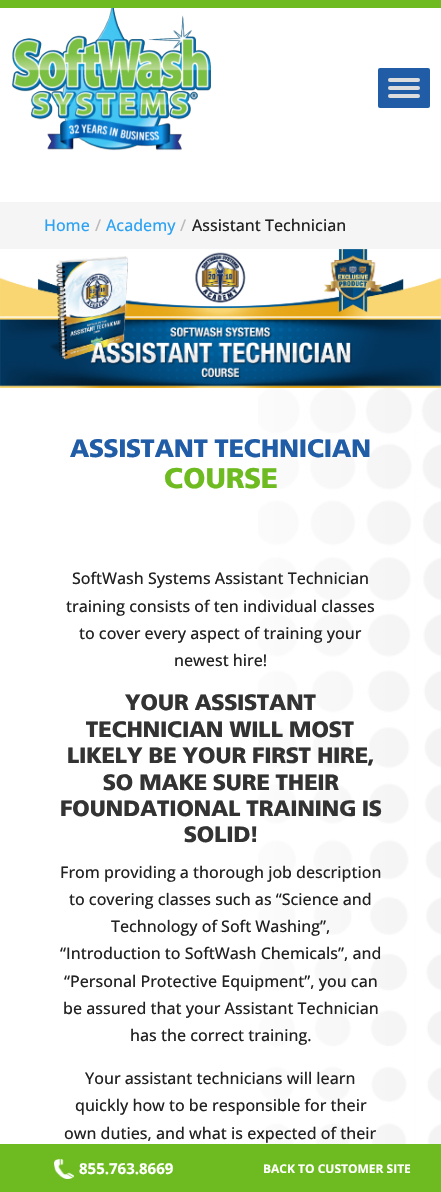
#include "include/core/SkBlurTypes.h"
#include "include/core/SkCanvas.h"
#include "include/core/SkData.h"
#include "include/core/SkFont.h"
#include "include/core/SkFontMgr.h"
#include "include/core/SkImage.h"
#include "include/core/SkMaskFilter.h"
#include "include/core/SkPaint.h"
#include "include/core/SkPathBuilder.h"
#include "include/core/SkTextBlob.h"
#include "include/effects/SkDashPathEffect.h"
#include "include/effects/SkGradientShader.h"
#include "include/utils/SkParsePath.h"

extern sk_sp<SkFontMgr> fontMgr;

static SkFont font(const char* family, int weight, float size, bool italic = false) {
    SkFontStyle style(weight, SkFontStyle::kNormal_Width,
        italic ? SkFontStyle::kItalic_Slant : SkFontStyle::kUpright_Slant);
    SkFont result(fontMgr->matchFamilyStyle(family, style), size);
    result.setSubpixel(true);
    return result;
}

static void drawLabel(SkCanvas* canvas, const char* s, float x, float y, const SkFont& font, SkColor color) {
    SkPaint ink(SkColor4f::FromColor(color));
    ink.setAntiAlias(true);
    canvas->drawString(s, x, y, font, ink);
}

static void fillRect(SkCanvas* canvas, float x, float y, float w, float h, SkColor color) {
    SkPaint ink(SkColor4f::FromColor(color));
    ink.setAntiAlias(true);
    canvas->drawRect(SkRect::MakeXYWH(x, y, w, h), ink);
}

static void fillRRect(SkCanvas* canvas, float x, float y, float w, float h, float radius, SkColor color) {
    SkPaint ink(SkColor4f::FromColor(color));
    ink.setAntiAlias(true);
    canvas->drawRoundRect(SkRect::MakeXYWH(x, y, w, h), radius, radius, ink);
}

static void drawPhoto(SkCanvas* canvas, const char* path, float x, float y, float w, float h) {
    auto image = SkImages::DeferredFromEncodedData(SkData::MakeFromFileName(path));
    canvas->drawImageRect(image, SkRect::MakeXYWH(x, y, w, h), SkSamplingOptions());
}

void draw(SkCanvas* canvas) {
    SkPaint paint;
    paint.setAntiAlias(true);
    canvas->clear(0xFFFFFFFF);
    fillRect(canvas, 0, 0, 441, 8, 0xFF6EBB21);
    drawPhoto(canvas, "assets/img1.png", 11, 8, 200, 143);
    fillRRect(canvas, 378, 68, 52, 40, 2, 0xFF215DA7);
    fillRRect(canvas, 388, 78, 32, 4, 2, 0xFFDDDDDD);
    fillRRect(canvas, 388, 86, 32, 4, 2, 0xFFDDDDDD);
    fillRRect(canvas, 388, 94, 32, 4, 2, 0xFFDDDDDD);
    fillRect(canvas, 0, 202, 441, 47, 0xFFF5F5F5);
    SkFont font1 = font("Open Sans", 500, 16);
    drawLabel(canvas, "Home", 44, 231, font1, 0xFF2EA3F2);
    drawLabel(canvas, "/", 95, 231, font1, 0xFFBBBBBB);
    drawLabel(canvas, "Academy", 106, 231, font1, 0xFF2EA3F2);
    drawLabel(canvas, "/", 180, 231, font1, 0xFFBBBBBB);
    drawLabel(canvas, "Assistant Technician", 192, 231, font1, 0xFF222222);
    drawPhoto(canvas, "assets/img2.png", 0, 249, 441, 139);
    drawPhoto(canvas, "assets/img3.png", 258, 388, 183, 756);
    SkFont font2 = font("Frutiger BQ", 900, 25);
    drawLabel(canvas, "ASSISTANT TECHNICIAN", 70, 457, font2, 0xFF215DA7);
    SkFont font3 = font("Frutiger BQ", 900, 28);
    drawLabel(canvas, "COURSE", 164, 488, font3, 0xFF6EBB21);
    drawLabel(canvas, "SoftWash Systems Assistant Technician", 72, 584, font1, 0xFF222222);
    drawLabel(canvas, "training consists of ten individual classes", 66, 612, font1, 0xFF222222);
    drawLabel(canvas, "to cover every aspect of training your", 79, 639, font1, 0xFF222222);
    drawLabel(canvas, "newest hire!", 174, 666, font1, 0xFF222222);
    SkFont font4 = font("Frutiger BQ", 900, 22);
    drawLabel(canvas, "YOUR ASSISTANT", 125, 710, font4, 0xFF333333);
    drawLabel(canvas, "TECHNICIAN WILL MOST", 86, 737, font4, 0xFF333333);
    drawLabel(canvas, "LIKELY BE YOUR FIRST HIRE,", 67, 763, font4, 0xFF333333);
    drawLabel(canvas, "SO MAKE SURE THEIR", 103, 790, font4, 0xFF333333);
    drawLabel(canvas, "FOUNDATIONAL TRAINING IS", 60, 816, font4, 0xFF333333);
    drawLabel(canvas, "SOLID!", 184, 842, font4, 0xFF333333);
    drawLabel(canvas, "From providing a thorough job description", 60, 878, font1, 0xFF222222);
    drawLabel(canvas, "to covering classes such as “Science and", 69, 905, font1, 0xFF222222);
    drawLabel(canvas, "Technology of Soft Washing”,", 111, 932, font1, 0xFF222222);
    drawLabel(canvas, "“Introduction to SoftWash Chemicals”, and", 60, 959, font1, 0xFF222222);
    drawLabel(canvas, "“Personal Protective Equipment”, you can", 64, 987, font1, 0xFF222222);
    drawLabel(canvas, "be assured that your Assistant Technician", 63, 1014, font1, 0xFF222222);
    drawLabel(canvas, "has the correct training.", 130, 1041, font1, 0xFF222222);
    drawLabel(canvas, "Your assistant technicians will learn", 85, 1084, font1, 0xFF222222);
    drawLabel(canvas, "quickly how to be responsible for their", 75, 1111, font1, 0xFF222222);
    drawLabel(canvas, "own duties, and what is expected of their", 64, 1139, font1, 0xFF222222);
    fillRect(canvas, 0, 1144, 441, 48, 0xFF6EBB21);
    drawPhoto(canvas, "assets/img4.png", 54, 1159, 20, 20);
    SkFont font5 = font("Open Sans", 700, 15);
    drawLabel(canvas, "855.763.8669", 79, 1174, font5, 0xFFFFFFFF);
    SkFont font6 = font("Open Sans", 700, 12);
    drawLabel(canvas, "BACK TO CUSTOMER SITE", 263, 1173, font6, 0xFFFFFFFF);
}
